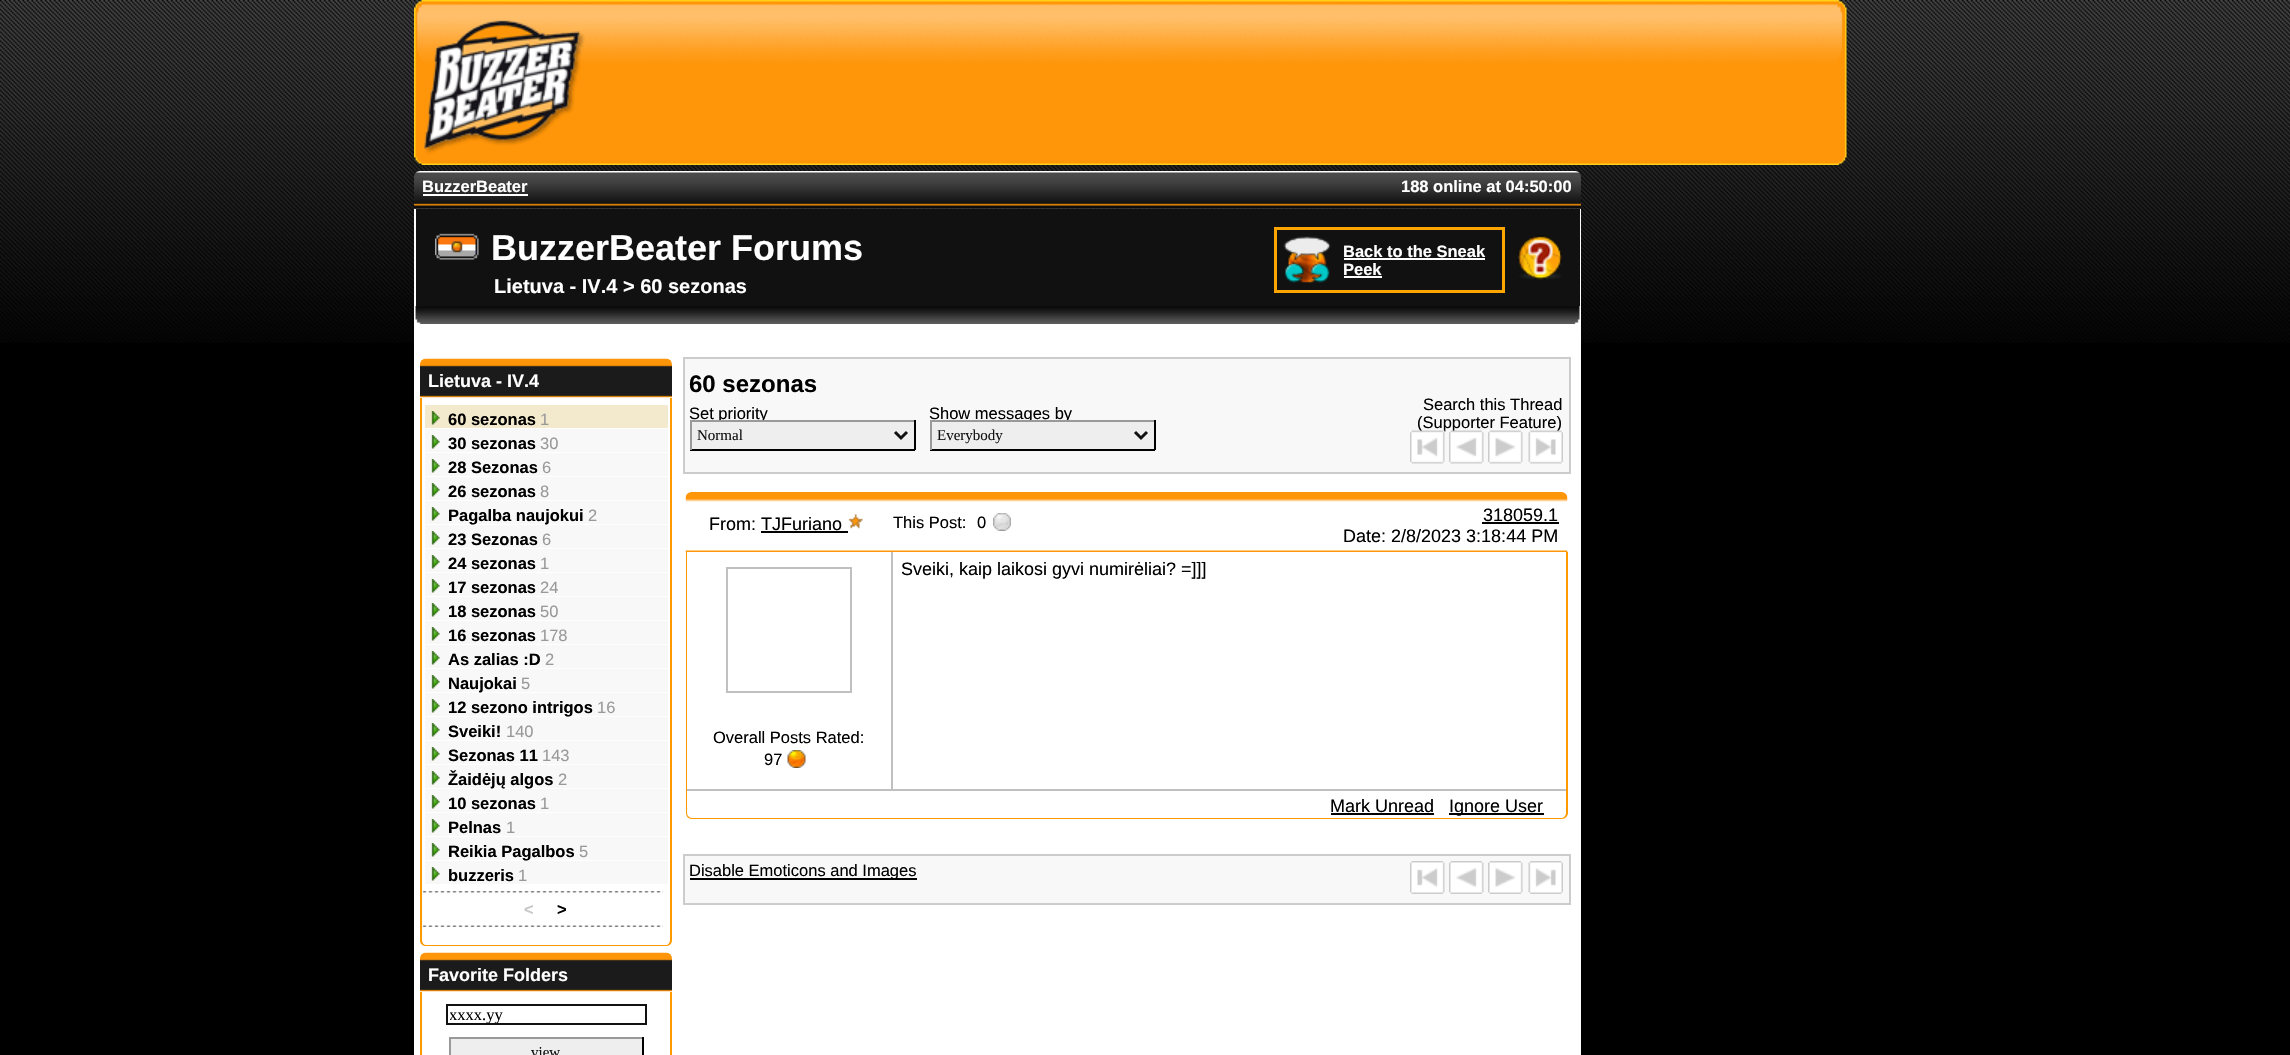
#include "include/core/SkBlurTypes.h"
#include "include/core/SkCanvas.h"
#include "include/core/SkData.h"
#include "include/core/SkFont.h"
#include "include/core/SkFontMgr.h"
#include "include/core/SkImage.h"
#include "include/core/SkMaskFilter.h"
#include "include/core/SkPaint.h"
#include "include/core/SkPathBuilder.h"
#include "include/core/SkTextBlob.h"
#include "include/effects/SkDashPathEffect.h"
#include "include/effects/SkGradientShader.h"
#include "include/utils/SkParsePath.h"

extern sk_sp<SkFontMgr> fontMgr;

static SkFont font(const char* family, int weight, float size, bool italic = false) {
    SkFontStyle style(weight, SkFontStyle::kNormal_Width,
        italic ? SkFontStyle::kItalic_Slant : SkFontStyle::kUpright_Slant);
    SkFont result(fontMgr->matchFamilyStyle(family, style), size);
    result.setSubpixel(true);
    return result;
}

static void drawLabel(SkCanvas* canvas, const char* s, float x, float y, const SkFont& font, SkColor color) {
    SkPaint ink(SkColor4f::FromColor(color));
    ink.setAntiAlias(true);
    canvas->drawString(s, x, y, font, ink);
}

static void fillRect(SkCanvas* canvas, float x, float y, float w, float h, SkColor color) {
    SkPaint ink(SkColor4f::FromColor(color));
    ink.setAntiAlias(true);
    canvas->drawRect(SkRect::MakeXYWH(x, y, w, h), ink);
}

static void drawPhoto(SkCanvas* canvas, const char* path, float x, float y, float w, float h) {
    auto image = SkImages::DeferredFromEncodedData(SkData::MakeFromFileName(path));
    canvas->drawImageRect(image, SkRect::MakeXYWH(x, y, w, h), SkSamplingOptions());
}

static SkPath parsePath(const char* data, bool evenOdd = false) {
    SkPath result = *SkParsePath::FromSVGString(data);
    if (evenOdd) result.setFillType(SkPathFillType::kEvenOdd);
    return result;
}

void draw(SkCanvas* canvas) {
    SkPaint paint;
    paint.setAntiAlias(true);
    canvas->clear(0xFF000000);
    drawPhoto(canvas, "assets/img1.png", 0, 0, 2290, 343);
    drawPhoto(canvas, "assets/img2.png", 414, 0, 1433, 165);
    drawPhoto(canvas, "assets/img3.png", 414, 171, 1167, 38);
    SkFont font1 = font("Liberation Sans", 700, 16.5f);
    drawLabel(canvas, "BuzzerBeater", 422, 192, font1, 0xFFFFFFFF);
    fillRect(canvas, 423, 194, 105, 2, 0xFFFFFFFF);
    drawLabel(canvas, "188 online at 04:50:00", 1401, 192, font1, 0xFFFFFFFF);
    fillRect(canvas, 414, 209, 1167, 846, 0xFFFFFFFF);
    fillRect(canvas, 416, 209, 1164, 97, 0xFF111111);
    drawPhoto(canvas, "assets/img4.png", 435, 233, 44, 27);
    SkFont font2 = font("Liberation Sans", 700, 36);
    drawLabel(canvas, "BuzzerBeater Forums", 491, 260, font2, 0xFFFFFFFF);
    SkFont font3 = font("Liberation Sans", 700, 20);
    drawLabel(canvas, "Lietuva - IV.4 > 60 sezonas", 494, 293, font3, 0xFFFFFFFF);
    drawPhoto(canvas, "assets/img5.png", 1517, 235, 45, 45);
    paint.setStroke(true);
    paint.setStrokeWidth(3);
    paint.setColor(0xFFFFA500);
    canvas->drawRect(SkRect::MakeXYWH(1275.5f, 228.5f, 228, 63), paint);
    drawPhoto(canvas, "assets/img6.png", 1283, 236, 48, 47);
    drawLabel(canvas, "Back to the Sneak", 1343, 257, font1, 0xFFFFFFFF);
    fillRect(canvas, 1344, 258, 141, 2, 0xFFFFFFFF);
    drawLabel(canvas, "Peek", 1343, 275, font1, 0xFFFFFFFF);
    fillRect(canvas, 1344, 276, 38, 2, 0xFFFFFFFF);
    drawPhoto(canvas, "assets/img7.png", 415, 306, 8, 18);
    drawPhoto(canvas, "assets/img8.png", 423, 306, 1149, 18);
    drawPhoto(canvas, "assets/img9.png", 1572, 306, 8, 18);
    drawPhoto(canvas, "assets/img10.png", 420, 358, 252, 40);
    SkFont font4 = font("Liberation Sans", 700, 18);
    drawLabel(canvas, "Lietuva - IV.4", 428, 387, font4, 0xFFFFFFFF);
    paint.setStroke(false);
    paint.setColor(0xFFFF9900);
    canvas->drawPath(parsePath("M420 398H672V940C672 944 669 946 666 946H426C423 946 420 944 420 940ZM422 398H670V940C670 943 668 945 666 945H426C424 945 422 943 422 940Z", true), paint);
    fillRect(canvas, 425, 405, 243, 23, 0xFFF3E9CD);
    drawPhoto(canvas, "assets/img11.png", 431, 411, 9, 14);
    drawLabel(canvas, "60 sezonas", 448, 425, font1, 0xFF000000);
    SkFont font5 = font("Liberation Sans", 400, 16.5f);
    drawLabel(canvas, "1", 540, 425, font5, 0xFF999999);
    fillRect(canvas, 425, 429, 243, 23, 0xFFF8F8F8);
    drawPhoto(canvas, "assets/img12.png", 431, 435, 9, 14);
    drawLabel(canvas, "30 sezonas", 448, 449, font1, 0xFF000000);
    drawLabel(canvas, "30", 540, 449, font5, 0xFF999999);
    fillRect(canvas, 425, 453, 243, 23, 0xFFF8F8F8);
    drawPhoto(canvas, "assets/img12.png", 431, 459, 9, 14);
    drawLabel(canvas, "28 Sezonas", 448, 473, font1, 0xFF000000);
    drawLabel(canvas, "6", 542, 473, font5, 0xFF999999);
    fillRect(canvas, 425, 477, 243, 23, 0xFFF8F8F8);
    drawPhoto(canvas, "assets/img12.png", 431, 483, 9, 14);
    drawLabel(canvas, "26 sezonas", 448, 497, font1, 0xFF000000);
    drawLabel(canvas, "8", 540, 497, font5, 0xFF999999);
    fillRect(canvas, 425, 501, 243, 23, 0xFFF8F8F8);
    drawPhoto(canvas, "assets/img12.png", 431, 507, 9, 14);
    drawLabel(canvas, "Pagalba naujokui", 448, 521, font1, 0xFF000000);
    drawLabel(canvas, "2", 588, 521, font5, 0xFF999999);
    fillRect(canvas, 425, 525, 243, 23, 0xFFF8F8F8);
    drawPhoto(canvas, "assets/img12.png", 431, 531, 9, 14);
    drawLabel(canvas, "23 Sezonas", 448, 545, font1, 0xFF000000);
    drawLabel(canvas, "6", 542, 545, font5, 0xFF999999);
    fillRect(canvas, 425, 549, 243, 23, 0xFFF8F8F8);
    drawPhoto(canvas, "assets/img12.png", 431, 555, 9, 14);
    drawLabel(canvas, "24 sezonas", 448, 569, font1, 0xFF000000);
    drawLabel(canvas, "1", 540, 569, font5, 0xFF999999);
    fillRect(canvas, 425, 573, 243, 23, 0xFFF8F8F8);
    drawPhoto(canvas, "assets/img12.png", 431, 579, 9, 14);
    drawLabel(canvas, "17 sezonas", 448, 593, font1, 0xFF000000);
    drawLabel(canvas, "24", 540, 593, font5, 0xFF999999);
    fillRect(canvas, 425, 597, 243, 23, 0xFFF8F8F8);
    drawPhoto(canvas, "assets/img12.png", 431, 603, 9, 14);
    drawLabel(canvas, "18 sezonas", 448, 617, font1, 0xFF000000);
    drawLabel(canvas, "50", 540, 617, font5, 0xFF999999);
    fillRect(canvas, 425, 621, 243, 23, 0xFFF8F8F8);
    drawPhoto(canvas, "assets/img12.png", 431, 627, 9, 14);
    drawLabel(canvas, "16 sezonas", 448, 641, font1, 0xFF000000);
    drawLabel(canvas, "178", 540, 641, font5, 0xFF999999);
    fillRect(canvas, 425, 645, 243, 23, 0xFFF8F8F8);
    drawPhoto(canvas, "assets/img12.png", 431, 651, 9, 14);
    drawLabel(canvas, "As zalias :D", 448, 665, font1, 0xFF000000);
    drawLabel(canvas, "2", 545, 665, font5, 0xFF999999);
    fillRect(canvas, 425, 669, 243, 23, 0xFFF8F8F8);
    drawPhoto(canvas, "assets/img12.png", 431, 675, 9, 14);
    drawLabel(canvas, "Naujokai", 448, 689, font1, 0xFF000000);
    drawLabel(canvas, "5", 521, 689, font5, 0xFF999999);
    fillRect(canvas, 425, 693, 243, 23, 0xFFF8F8F8);
    drawPhoto(canvas, "assets/img12.png", 431, 699, 9, 14);
    drawLabel(canvas, "12 sezono intrigos", 448, 713, font1, 0xFF000000);
    drawLabel(canvas, "16", 597, 713, font5, 0xFF999999);
    fillRect(canvas, 425, 717, 243, 23, 0xFFF8F8F8);
    drawPhoto(canvas, "assets/img12.png", 431, 723, 9, 14);
    drawLabel(canvas, "Sveiki!", 448, 737, font1, 0xFF000000);
    drawLabel(canvas, "140", 506, 737, font5, 0xFF999999);
    fillRect(canvas, 425, 741, 243, 23, 0xFFF8F8F8);
    drawPhoto(canvas, "assets/img12.png", 431, 747, 9, 14);
    drawLabel(canvas, "Sezonas 11", 448, 761, font1, 0xFF000000);
    drawLabel(canvas, "143", 542, 761, font5, 0xFF999999);
    fillRect(canvas, 425, 765, 243, 23, 0xFFF8F8F8);
    drawPhoto(canvas, "assets/img12.png", 431, 771, 9, 14);
    drawLabel(canvas, "Žaidėjų algos", 448, 785, font1, 0xFF000000);
    drawLabel(canvas, "2", 558, 785, font5, 0xFF999999);
    fillRect(canvas, 425, 789, 243, 23, 0xFFF8F8F8);
    drawPhoto(canvas, "assets/img12.png", 431, 795, 9, 14);
    drawLabel(canvas, "10 sezonas", 448, 809, font1, 0xFF000000);
    drawLabel(canvas, "1", 540, 809, font5, 0xFF999999);
    fillRect(canvas, 425, 813, 243, 23, 0xFFF8F8F8);
    drawPhoto(canvas, "assets/img12.png", 431, 819, 9, 14);
    drawLabel(canvas, "Pelnas", 448, 833, font1, 0xFF000000);
    drawLabel(canvas, "1", 506, 833, font5, 0xFF999999);
    fillRect(canvas, 425, 837, 243, 23, 0xFFF8F8F8);
    drawPhoto(canvas, "assets/img12.png", 431, 843, 9, 14);
    drawLabel(canvas, "Reikia Pagalbos", 448, 857, font1, 0xFF000000);
    drawLabel(canvas, "5", 579, 857, font5, 0xFF999999);
    fillRect(canvas, 425, 861, 243, 23, 0xFFF8F8F8);
    drawPhoto(canvas, "assets/img12.png", 431, 867, 9, 14);
    drawLabel(canvas, "buzzeris", 448, 881, font1, 0xFF000000);
    drawLabel(canvas, "1", 518, 881, font5, 0xFF999999);
    drawPhoto(canvas, "assets/img13.png", 423, 891, 240, 2);
    drawLabel(canvas, "<", 524, 915, font1, 0xFFC8C8C8);
    drawLabel(canvas, ">", 557, 915, font1, 0xFF000000);
    drawPhoto(canvas, "assets/img14.png", 423, 925, 240, 2);
    drawPhoto(canvas, "assets/img10.png", 420, 952, 252, 40);
    drawLabel(canvas, "Favorite Folders", 428, 981, font4, 0xFFFFFFFF);
    canvas->drawPath(parsePath("M420 992H672V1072C672 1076 669 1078 666 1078H426C423 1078 420 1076 420 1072ZM422 992H670V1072C670 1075 668 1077 666 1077H426C424 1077 422 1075 422 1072Z", true), paint);
    paint.setStroke(true);
    paint.setStrokeWidth(2);
    paint.setColor(0xFF111111);
    canvas->drawRect(SkRect::MakeXYWH(447, 1005, 199, 19), paint);
    canvas->save();
    canvas->clipRect(SkRect::MakeXYWH(450, 1005, 195, 18));
    SkFont font6 = font("Liberation Serif", 400, 16.5f);
    drawLabel(canvas, "xxxx.yy", 449, 1020, font6, 0xFF000000);
    canvas->restore();
    fillRect(canvas, 451, 1039, 191, 16, 0xFFEEEEEE);
    fillRect(canvas, 449, 1037, 195, 2, 0xFF999999);
    fillRect(canvas, 642, 1037, 2, 18, 0xFF000000);
    fillRect(canvas, 449, 1037, 2, 18, 0xFF999999);
    SkFont font7 = font("Liberation Serif", 400, 15);
    drawLabel(canvas, "view", 531, 1057, font7, 0xFF111111);
    paint.setStroke(false);
    paint.setColor(0xFFF8F8F8);
    canvas->drawRect(SkRect::MakeXYWH(684, 358, 886, 115), paint);
    paint.setStroke(true);
    paint.setColor(0xFFCCCCCC);
    canvas->drawRect(SkRect::MakeXYWH(684, 358, 886, 115), paint);
    SkFont font8 = font("Liberation Sans", 700, 24);
    drawLabel(canvas, "60 sezonas", 689, 392, font8, 0xFF000000);
    drawLabel(canvas, "Set priority", 689, 419, font5, 0xFF000000);
    fillRect(canvas, 692, 422, 222, 27, 0xFFEEEEEE);
    fillRect(canvas, 690, 420, 225, 2, 0xFF999999);
    fillRect(canvas, 914, 420, 2, 30, 0xFF000000);
    fillRect(canvas, 690, 449, 225, 2, 0xFF000000);
    fillRect(canvas, 690, 420, 2, 30, 0xFF999999);
    paint.setStrokeWidth(3);
    paint.setColor(0xFF111111);
    canvas->drawPath(parsePath("M895 432L901 438L907 432"), paint);
    drawLabel(canvas, "Normal", 697, 440, font7, 0xFF111111);
    drawLabel(canvas, "Show messages by", 929, 419, font5, 0xFF000000);
    fillRect(canvas, 932, 422, 222, 27, 0xFFEEEEEE);
    fillRect(canvas, 930, 420, 225, 2, 0xFF999999);
    fillRect(canvas, 1154, 420, 2, 30, 0xFF000000);
    fillRect(canvas, 930, 449, 225, 2, 0xFF000000);
    fillRect(canvas, 930, 420, 2, 30, 0xFF999999);
    canvas->drawPath(parsePath("M1135 432L1141 438L1147 432"), paint);
    drawLabel(canvas, "Everybody", 937, 440, font7, 0xFF111111);
    drawLabel(canvas, "Search this Thread", 1423, 410, font5, 0xFF000000);
    drawLabel(canvas, "(Supporter Feature)", 1417, 428, font5, 0xFF000000);
    drawPhoto(canvas, "assets/img15.png", 1410, 430, 35, 34);
    drawPhoto(canvas, "assets/img16.png", 1449, 430, 35, 34);
    drawPhoto(canvas, "assets/img17.png", 1488, 430, 35, 34);
    drawPhoto(canvas, "assets/img18.png", 1528, 430, 35, 34);
    drawPhoto(canvas, "assets/img19.png", 685, 492, 883, 60);
    SkFont font9 = font("Liberation Sans", 400, 18);
    drawLabel(canvas, "From: TJFuriano", 709, 530, font9, 0xFF000000);
    drawPhoto(canvas, "assets/img20.png", 848, 514, 15, 15);
    fillRect(canvas, 761, 531, 87, 2, 0xFF000000);
    drawLabel(canvas, "This Post:", 893, 528, font5, 0xFF000000);
    drawLabel(canvas, "0", 977, 528, font5, 0xFF000000);
    drawPhoto(canvas, "assets/img21.png", 993, 513, 18, 18);
    drawLabel(canvas, "318059.1", 1483, 521, font9, 0xFF000000);
    fillRect(canvas, 1482, 522, 77, 2, 0xFF000000);
    drawLabel(canvas, "Date: 2/8/2023 3:18:44 PM", 1343, 542, font9, 0xFF000000);
    paint.setStroke(false);
    paint.setColor(0xFFFF9900);
    canvas->drawPath(parsePath("M686 552H1568V813C1568 816 1565 819 1562 819H692C688 819 686 816 686 813ZM687 552H1566V813C1566 815 1564 818 1562 818H692C689 818 687 815 687 813Z", true), paint);
    drawLabel(canvas, "Sveiki, kaip laikosi gyvi numirėliai? =]]]", 901, 575, font9, 0xFF000000);
    fillRect(canvas, 891, 552, 2, 237, 0xFFC0C0C0);
    paint.setStroke(true);
    paint.setStrokeWidth(2);
    paint.setColor(0xFFC0C0C0);
    canvas->drawRect(SkRect::MakeXYWH(727, 568, 124, 124), paint);
    drawLabel(canvas, "Overall Posts Rated:", 713, 743, font5, 0xFF000000);
    drawLabel(canvas, "97", 764, 765, font5, 0xFF000000);
    drawPhoto(canvas, "assets/img22.png", 787, 750, 19, 18);
    fillRect(canvas, 687, 789, 879, 2, 0xFFC0C0C0);
    drawLabel(canvas, "Mark Unread", 1330, 812, font9, 0xFF000000);
    fillRect(canvas, 1331, 813, 103, 2, 0xFF000000);
    fillRect(canvas, 1449, 813, 95, 2, 0xFF000000);
    drawLabel(canvas, "Ignore User", 1449, 812, font9, 0xFF000000);
    paint.setStroke(false);
    paint.setColor(0xFFF8F8F8);
    canvas->drawRect(SkRect::MakeXYWH(684, 855, 886, 49), paint);
    paint.setStroke(true);
    paint.setColor(0xFFCCCCCC);
    canvas->drawRect(SkRect::MakeXYWH(684, 855, 886, 49), paint);
    fillRect(canvas, 690, 878, 227, 2, 0xFF000000);
    drawLabel(canvas, "Disable Emoticons and Images", 689, 876, font5, 0xFF000000);
    drawPhoto(canvas, "assets/img23.png", 1410, 861, 35, 33);
    drawPhoto(canvas, "assets/img24.png", 1449, 861, 35, 33);
    drawPhoto(canvas, "assets/img25.png", 1488, 861, 35, 33);
    drawPhoto(canvas, "assets/img26.png", 1528, 861, 35, 33);
}
